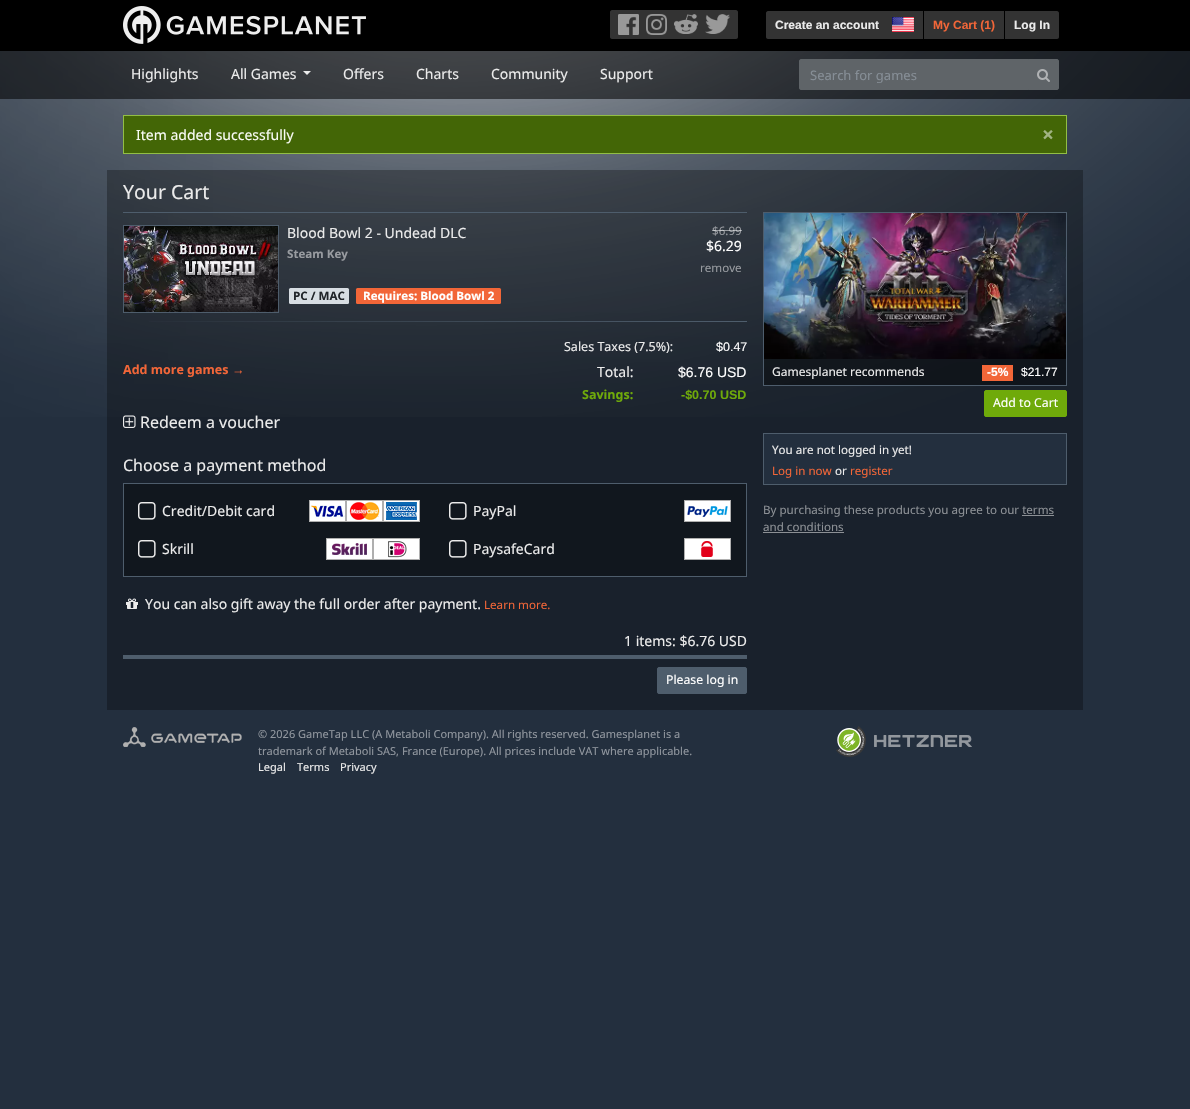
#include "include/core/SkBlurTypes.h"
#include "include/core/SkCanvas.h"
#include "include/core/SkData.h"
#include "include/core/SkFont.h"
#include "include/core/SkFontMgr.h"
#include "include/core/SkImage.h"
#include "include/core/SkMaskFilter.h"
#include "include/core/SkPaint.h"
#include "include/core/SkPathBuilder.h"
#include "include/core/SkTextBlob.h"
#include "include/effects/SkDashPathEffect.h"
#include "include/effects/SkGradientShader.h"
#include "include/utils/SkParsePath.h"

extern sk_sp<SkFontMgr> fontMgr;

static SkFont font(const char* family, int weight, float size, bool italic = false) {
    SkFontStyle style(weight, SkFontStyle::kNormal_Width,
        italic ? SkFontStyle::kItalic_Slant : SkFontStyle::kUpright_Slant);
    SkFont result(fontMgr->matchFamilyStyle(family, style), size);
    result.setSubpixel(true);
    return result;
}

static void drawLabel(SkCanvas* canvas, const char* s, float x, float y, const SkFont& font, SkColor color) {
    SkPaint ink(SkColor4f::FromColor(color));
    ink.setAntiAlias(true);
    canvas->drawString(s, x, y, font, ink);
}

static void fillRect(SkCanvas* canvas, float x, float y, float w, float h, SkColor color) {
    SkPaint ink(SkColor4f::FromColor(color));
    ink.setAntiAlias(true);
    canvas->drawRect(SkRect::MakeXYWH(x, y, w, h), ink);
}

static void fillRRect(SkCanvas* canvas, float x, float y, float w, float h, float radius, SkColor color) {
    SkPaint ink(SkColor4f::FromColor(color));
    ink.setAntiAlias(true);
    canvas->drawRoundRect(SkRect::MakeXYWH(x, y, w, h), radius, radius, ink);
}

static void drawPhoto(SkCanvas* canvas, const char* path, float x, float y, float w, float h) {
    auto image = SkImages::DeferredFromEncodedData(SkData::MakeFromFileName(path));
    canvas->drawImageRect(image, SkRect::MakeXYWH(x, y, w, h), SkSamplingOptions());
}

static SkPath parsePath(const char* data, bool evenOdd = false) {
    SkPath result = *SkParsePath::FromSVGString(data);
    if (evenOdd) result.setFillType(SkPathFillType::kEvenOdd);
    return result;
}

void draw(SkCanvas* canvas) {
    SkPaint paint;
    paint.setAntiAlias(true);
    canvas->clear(0xFF232F3E);
    drawPhoto(canvas, "assets/img1.png", 0, 51, 1190, 366);
    fillRect(canvas, 0, 0, 1190, 51, 0xFF000000);
    drawPhoto(canvas, "assets/img2.png", 123, 6, 243, 38);
    paint.setColor(0xFF333333);
    canvas->drawPath(parsePath("M612 10H643V39H612C611 39 610 38 610 37V12C610 11 611 10 612 10Z"), paint);
    drawPhoto(canvas, "assets/img3.png", 618, 14, 21, 21);
    fillRect(canvas, 643, 10, 58, 29, 0xFF333333);
    drawPhoto(canvas, "assets/img4.png", 646, 14, 21, 21);
    canvas->drawPath(parsePath("M701 10H736C737 10 738 11 738 12V37C738 38 737 39 736 39H701Z"), paint);
    drawPhoto(canvas, "assets/img5.png", 705, 14, 25, 20);
    drawPhoto(canvas, "assets/img6.png", 674, 14, 24, 20);
    canvas->drawPath(parsePath("M768 11H888V39H768C767 39 766 38 766 37V13C766 12 767 11 768 11Z"), paint);
    SkFont font1 = font("Liberation Sans", 700, 12);
    drawLabel(canvas, "Create an account", 775, 29, font1, 0xFFEBEBEB);
    fillRect(canvas, 888, 11, 35, 28, 0xFF333333);
    drawPhoto(canvas, "assets/img7.png", 892, 17, 22, 15);
    fillRect(canvas, 924, 11, 80, 28, 0xFF333333);
    drawLabel(canvas, "My Cart (1)", 933, 29, font1, 0xFFF26638);
    canvas->drawPath(parsePath("M1005 11H1057C1058 11 1059 12 1059 13V37C1059 38 1058 39 1057 39H1005Z"), paint);
    drawLabel(canvas, "Log In", 1014, 29, font1, 0xFFEBEBEB);
    fillRect(canvas, 0, 51, 1190, 48, 0x8C000000);
    SkFont font2 = font("Noto Sans", 400, 14);
    drawLabel(canvas, "Highlights", 131, 79, font2, 0xFFEBEBEB);
    drawLabel(canvas, "All Games", 231, 79, font2, 0xFFEBEBEB);
    paint.setColor(0xFFEBEBEB);
    canvas->drawPath(parsePath("M303 71H311L307 75Z"), paint);
    drawLabel(canvas, "Offers", 343, 79, font2, 0xFFEBEBEB);
    drawLabel(canvas, "Charts", 416, 79, font2, 0xFFEBEBEB);
    drawLabel(canvas, "Community", 491, 79, font2, 0xFFEBEBEB);
    drawLabel(canvas, "Support", 600, 79, font2, 0xFFEBEBEB);
    paint.setColor(0xFF5F6468);
    canvas->drawPath(parsePath("M801 59.5H1028.5V89.5H801C800 89.5 799.5 89 799.5 88V61C799.5 60 800 59.5 801 59.5Z"), paint);
    paint.setStroke(true);
    paint.setStrokeWidth(1);
    canvas->drawPath(parsePath("M801 59.5H1028.5V89.5H801C800 89.5 799.5 89 799.5 88V61C799.5 60 800 59.5 801 59.5Z"), paint);
    SkFont font3 = font("Noto Sans", 400, 13);
    drawLabel(canvas, "Search for games", 810, 80, font3, 0xFF868E96);
    paint.setStroke(false);
    canvas->drawPath(parsePath("M1028.5 59.5H1057C1058 59.5 1058.5 60 1058.5 61V88C1058.5 89 1058 89.5 1057 89.5H1028.5Z"), paint);
    paint.setStroke(true);
    canvas->drawPath(parsePath("M1028.5 59.5H1057C1058 59.5 1058.5 60 1058.5 61V88C1058.5 89 1058 89.5 1057 89.5H1028.5Z"), paint);
    drawPhoto(canvas, "assets/img8.png", 1037, 69, 13, 13);
    paint.setStroke(false);
    paint.setColor(0xFF436606);
    canvas->drawRect(SkRect::MakeXYWH(123.5f, 115.5f, 943, 38), paint);
    paint.setStroke(true);
    paint.setColor(0xFF92BE45);
    canvas->drawRect(SkRect::MakeXYWH(123.5f, 115.5f, 943, 38), paint);
    drawLabel(canvas, "Item added successfully", 136, 140, font2, 0xFFF9FCF5);
    SkFont font4 = font("Noto Sans", 700, 21);
    drawLabel(canvas, "×", 1042, 142, font4, 0xFFA1B383);
    fillRect(canvas, 107, 170, 976, 540, 0x4D000000);
    SkFont font5 = font("Noto Sans", 400, 19.5f);
    drawLabel(canvas, "Your Cart", 123, 199, font5, 0xFFEBEBEB);
    fillRect(canvas, 123, 212, 624, 1, 0xFF4E5D6C);
    paint.setColor(0xFF4E5D6C);
    canvas->drawRect(SkRect::MakeXYWH(123.5f, 225.5f, 155, 87), paint);
    drawPhoto(canvas, "assets/img9.png", 124, 226, 154, 86);
    drawLabel(canvas, "Blood Bowl 2 - Undead DLC", 287, 238, font2, 0xFFEBEBEB);
    SkFont font6 = font("Noto Sans", 400, 11.6f);
    drawLabel(canvas, "$6.99", 712, 235, font6, 0xFF989BA0);
    fillRect(canvas, 712, 230, 30, 1, 0x80FFFFFF);
    drawLabel(canvas, "$6.29", 706, 251, font2, 0xFFFFFFFF);
    drawLabel(canvas, "remove", 700, 272, font6, 0xFF989BA0);
    SkFont font7 = font("Noto Sans", 700, 11.6f);
    drawLabel(canvas, "Steam Key", 287, 258, font7, 0xFF989BA0);
    fillRRect(canvas, 289, 288, 60, 16, 1.5f, 0xFFD7DDE2);
    drawLabel(canvas, "PC / MAC", 293, 300, font7, 0xFF212529);
    fillRRect(canvas, 356, 288, 145, 16, 1.5f, 0xFFF26638);
    drawLabel(canvas, "Requires: Blood Bowl 2", 363, 300, font7, 0xFFFFFFFF);
    paint.setStroke(false);
    {
        const SkColor colors[] = {0xFF4E5D6C, 0x004E5D6C};
        const float stops[] = {0, 1};
        const SkPoint ends[] = {{747, 322}, {123, 322}};
        paint.setShader(SkGradientShader::MakeLinear(ends, colors, stops, 2, SkTileMode::kClamp));
        paint.setAlpha(255);
    }
    canvas->drawRect(SkRect::MakeXYWH(149, 321, 598, 1), paint);
    SkFont font8 = font("Noto Sans", 400, 12.5f);
    drawLabel(canvas, "Sales Taxes (7.5%):", 564, 351, font8, 0xFFEBEBEB);
    SkFont font9 = font("Liberation Sans", 400, 12.5f);
    drawLabel(canvas, "$0.47", 716, 351, font9, 0xFFFFFFFF);
    SkFont font10 = font("Noto Sans", 700, 12.5f);
    drawLabel(canvas, "Add more games", 123, 374, font10, 0xFFF26638);
    SkFont font11 = font("Liberation Sans", 700, 12.5f);
    drawLabel(canvas, "→", 232, 374, font11, 0xFFF26638);
    drawLabel(canvas, "Total:", 597, 377, font2, 0xFFEBEBEB);
    SkFont font12 = font("Liberation Sans", 400, 14);
    drawLabel(canvas, "$6.76 USD", 678, 377, font12, 0xFFFFFFFF);
    drawLabel(canvas, "Savings:", 582, 399, font10, 0xFF6FAA0A);
    drawLabel(canvas, "-$0.70 USD", 681, 399, font11, 0xFF6FAA0A);
    drawPhoto(canvas, "assets/img10.png", 123, 415, 13, 13);
    SkFont font13 = font("Noto Sans", 400, 16);
    drawLabel(canvas, "Redeem a voucher", 140, 428, font13, 0xFFEBEBEB);
    drawLabel(canvas, "Choose a payment method", 123, 471, font13, 0xFFEBEBEB);
    paint.setShader(nullptr);
    paint.setColor(0xFF11171E);
    canvas->drawRect(SkRect::MakeXYWH(123.5f, 483.5f, 623, 93), paint);
    paint.setStroke(true);
    paint.setColor(0xFF4E5D6C);
    canvas->drawRect(SkRect::MakeXYWH(123.5f, 483.5f, 623, 93), paint);
    drawPhoto(canvas, "assets/img11.png", 138, 502, 18, 18);
    drawLabel(canvas, "Credit/Debit card", 162, 516, font2, 0xFFEBEBEB);
    drawPhoto(canvas, "assets/img12.png", 309, 500, 111, 22);
    drawPhoto(canvas, "assets/img11.png", 449, 502, 18, 18);
    drawLabel(canvas, "PayPal", 473, 516, font2, 0xFFEBEBEB);
    drawPhoto(canvas, "assets/img13.png", 684, 500, 47, 22);
    drawPhoto(canvas, "assets/img11.png", 138, 540, 18, 18);
    drawLabel(canvas, "Skrill", 162, 554, font2, 0xFFEBEBEB);
    drawPhoto(canvas, "assets/img14.png", 326, 538, 94, 22);
    drawPhoto(canvas, "assets/img11.png", 449, 540, 18, 18);
    drawLabel(canvas, "PaysafeCard", 473, 554, font2, 0xFFEBEBEB);
    drawPhoto(canvas, "assets/img15.png", 684, 538, 47, 22);
    drawPhoto(canvas, "assets/img16.png", 126, 598, 12, 11);
    drawLabel(canvas, "You can also gift away the full order after payment.", 145, 609, font2, 0xFFEBEBEB);
    drawLabel(canvas, "Learn more.", 484, 609, font6, 0xFFF26638);
    drawLabel(canvas, "1 items: $6.76 USD", 624, 646, font2, 0xFFEBEBEB);
    fillRect(canvas, 123, 655, 624, 4, 0xFF4E5D6C);
    paint.setStroke(false);
    canvas->drawRoundRect(SkRect::MakeXYWH(657.5f, 667.5f, 89, 26), 1.5f, 1.5f, paint);
    paint.setStroke(true);
    canvas->drawRoundRect(SkRect::MakeXYWH(657.5f, 667.5f, 89, 26), 1.5f, 1.5f, paint);
    SkFont font14 = font("Noto Sans", 400, 12.25f);
    drawLabel(canvas, "Please log in", 666, 684, font14, 0xFFFFFFFF);
    fillRect(canvas, 764, 359, 302, 26, 0x66000000);
    canvas->drawRect(SkRect::MakeXYWH(763.5f, 212.5f, 303, 173), paint);
    drawPhoto(canvas, "assets/img17.png", 764, 213, 302, 146);
    SkFont font15 = font("Noto Sans", 400, 12);
    drawLabel(canvas, "Gamesplanet recommends", 772, 376, font15, 0xFFEBEBEB);
    fillRect(canvas, 982, 365, 31, 16, 0xFFF26638);
    drawLabel(canvas, "-5%", 987, 376, font1, 0xFFFFFFFF);
    SkFont font16 = font("Liberation Sans", 400, 12);
    drawLabel(canvas, "$21.77", 1021, 376, font16, 0xFFFFFFFF);
    paint.setStroke(false);
    paint.setColor(0xFF6FAA0A);
    canvas->drawRoundRect(SkRect::MakeXYWH(984.5f, 390.5f, 82, 26), 1.5f, 1.5f, paint);
    paint.setStroke(true);
    canvas->drawRoundRect(SkRect::MakeXYWH(984.5f, 390.5f, 82, 26), 1.5f, 1.5f, paint);
    drawLabel(canvas, "Add to Cart", 993, 407, font14, 0xFFFFFFFF);
    paint.setStroke(false);
    paint.setColor(0xFF232F3E);
    canvas->drawRect(SkRect::MakeXYWH(763.5f, 433.5f, 303, 51), paint);
    paint.setStroke(true);
    paint.setColor(0xFF4E5D6C);
    canvas->drawRect(SkRect::MakeXYWH(763.5f, 433.5f, 303, 51), paint);
    drawLabel(canvas, "You are not logged in yet!", 772, 454, font6, 0xFFEBEBEB);
    drawLabel(canvas, "Log in now", 772, 475, font6, 0xFFF26638);
    drawLabel(canvas, "or", 835, 475, font6, 0xFFEBEBEB);
    drawLabel(canvas, "register", 850, 475, font6, 0xFFF26638);
    drawLabel(canvas, "By purchasing these products you agree to our terms", 763, 514, font6, 0xFF8C9095);
    drawLabel(canvas, "and conditions", 763, 531, font6, 0xFF8C9095);
    fillRect(canvas, 1022, 515, 32, 1, 0xFF8C9095);
    fillRect(canvas, 763, 532, 81, 1, 0xFF8C9095);
    drawPhoto(canvas, "assets/img18.png", 123, 727, 119, 20);
    SkFont font17 = font("Noto Sans", 400, 11);
    drawLabel(canvas, "© 2026 GameTap LLC (A Metaboli Company). All rights reserved. Gamesplanet is a", 258, 738, font17, 0xFF91979F);
    drawLabel(canvas, "trademark of Metaboli SAS, France (Europe). All prices include VAT where applicable.", 258, 755, font17, 0xFF91979F);
    drawLabel(canvas, "Legal", 258, 771, font17, 0xFFEBEBEB);
    drawLabel(canvas, "Terms", 297, 771, font17, 0xFFEBEBEB);
    drawLabel(canvas, "Privacy", 340, 771, font17, 0xFFEBEBEB);
    drawPhoto(canvas, "assets/img19.png", 836, 726, 30, 31);
    drawPhoto(canvas, "assets/img20.png", 874, 735, 98, 12);
}
